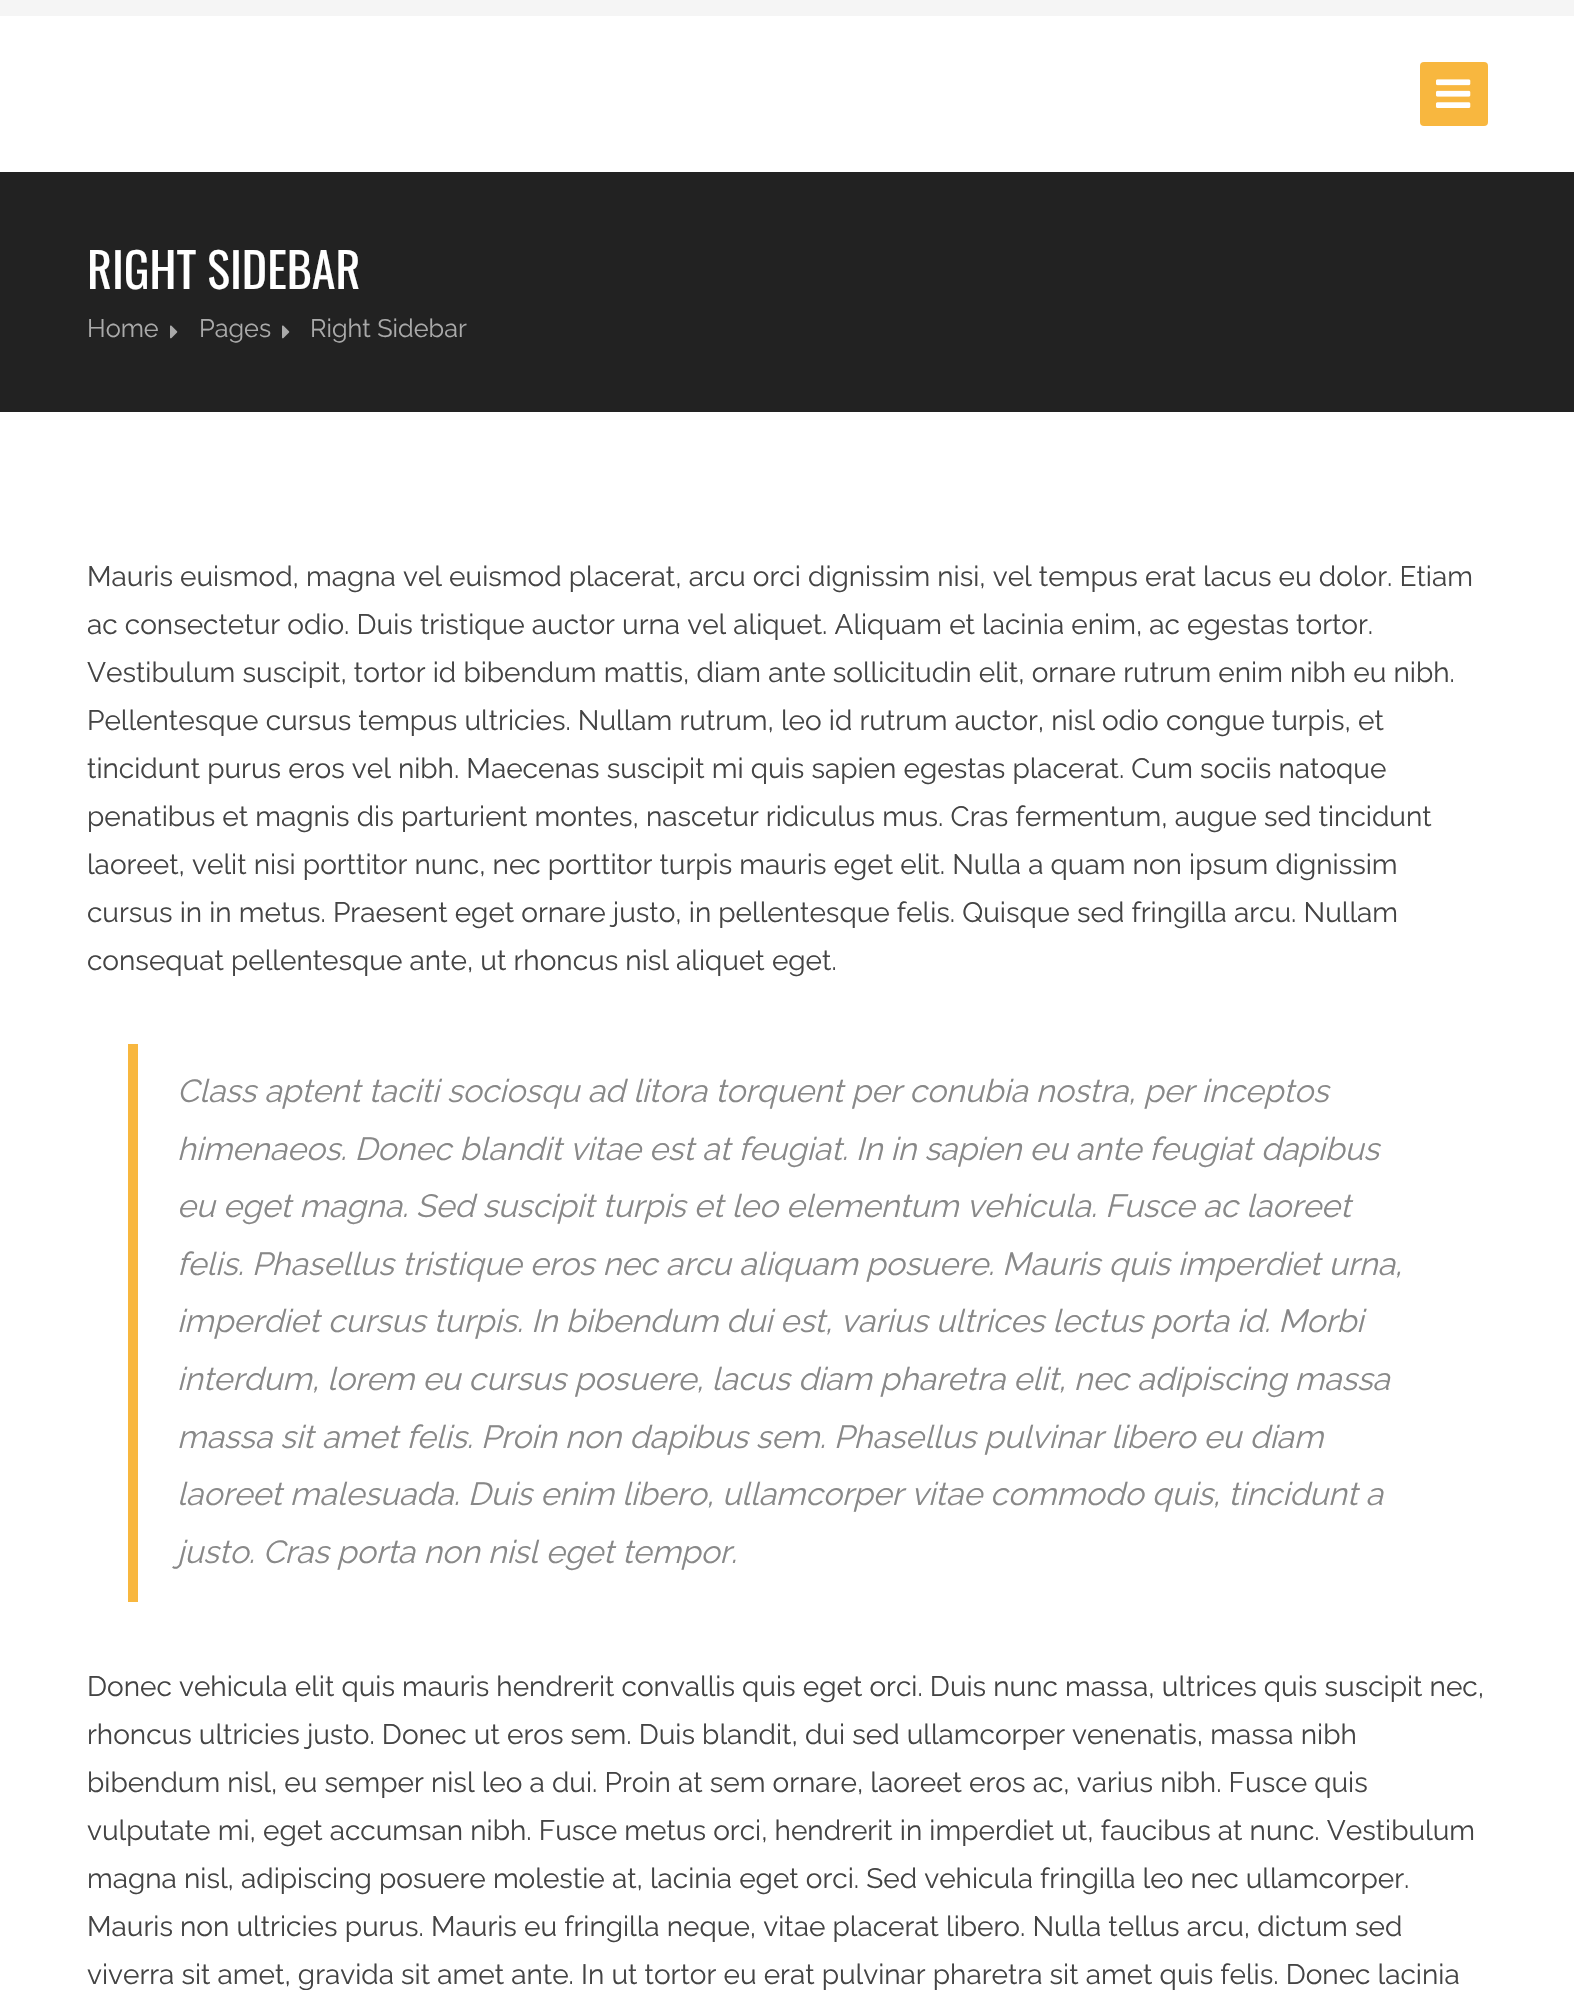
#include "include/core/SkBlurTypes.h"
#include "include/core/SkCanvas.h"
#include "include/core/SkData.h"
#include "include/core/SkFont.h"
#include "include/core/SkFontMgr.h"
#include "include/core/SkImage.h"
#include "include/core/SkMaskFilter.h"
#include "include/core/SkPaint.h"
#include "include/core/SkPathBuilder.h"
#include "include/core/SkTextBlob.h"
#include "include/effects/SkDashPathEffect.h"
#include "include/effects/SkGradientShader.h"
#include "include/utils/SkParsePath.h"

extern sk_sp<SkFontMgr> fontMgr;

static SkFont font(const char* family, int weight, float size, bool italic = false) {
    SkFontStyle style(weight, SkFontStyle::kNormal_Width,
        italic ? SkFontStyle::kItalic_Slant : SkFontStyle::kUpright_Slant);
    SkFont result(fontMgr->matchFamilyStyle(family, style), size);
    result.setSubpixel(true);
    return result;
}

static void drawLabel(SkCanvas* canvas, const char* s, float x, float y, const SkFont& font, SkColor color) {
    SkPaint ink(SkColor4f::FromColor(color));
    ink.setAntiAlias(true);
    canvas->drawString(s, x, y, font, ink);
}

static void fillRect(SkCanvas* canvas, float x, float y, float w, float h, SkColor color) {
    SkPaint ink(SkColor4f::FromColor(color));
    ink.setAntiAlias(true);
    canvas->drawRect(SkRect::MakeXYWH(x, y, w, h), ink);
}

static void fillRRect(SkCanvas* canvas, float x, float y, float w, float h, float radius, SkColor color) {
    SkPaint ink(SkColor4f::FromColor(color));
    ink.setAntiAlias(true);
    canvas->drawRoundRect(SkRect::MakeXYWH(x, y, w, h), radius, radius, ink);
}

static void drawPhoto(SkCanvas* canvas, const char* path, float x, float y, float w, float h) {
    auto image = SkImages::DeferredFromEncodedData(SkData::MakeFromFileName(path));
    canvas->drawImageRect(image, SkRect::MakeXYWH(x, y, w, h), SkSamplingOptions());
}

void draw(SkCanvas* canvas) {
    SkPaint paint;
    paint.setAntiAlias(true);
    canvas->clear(0xFFFFFFFF);
    fillRect(canvas, 0, 0, 1574, 16, 0xFFF5F5F5);
    fillRRect(canvas, 1420, 62, 68, 64, 4, 0xFFF8B73F);
    drawPhoto(canvas, "assets/img1.png", 1436, 79, 35, 29);
    fillRect(canvas, 0, 172, 1574, 240, 0xFF222222);
    SkFont font1 = font("Oswald", 400, 48);
    drawLabel(canvas, "RIGHT SIDEBAR", 87, 289, font1, 0xFFFFFFFF);
    SkFont font2 = font("Raleway", 400, 25.25f);
    drawLabel(canvas, "Home", 87, 337, font2, 0xFFAAAAAA);
    drawPhoto(canvas, "assets/img2.png", 170, 325, 8, 14);
    drawLabel(canvas, "Pages", 199, 337, font2, 0xFFAAAAAA);
    drawPhoto(canvas, "assets/img2.png", 282, 325, 8, 14);
    drawLabel(canvas, "Right Sidebar", 310, 337, font2, 0xFFAAAAAA);
    SkFont font3 = font("Raleway", 400, 28);
    drawLabel(canvas, "Mauris euismod, magna vel euismod placerat, arcu orci dignissim nisi, vel tempus erat lacus eu dolor. Etiam", 87, 586, font3, 0xFF444444);
    drawLabel(canvas, "ac consectetur odio. Duis tristique auctor urna vel aliquet. Aliquam et lacinia enim, ac egestas tortor.", 87, 634, font3, 0xFF444444);
    drawLabel(canvas, "Vestibulum suscipit, tortor id bibendum mattis, diam ante sollicitudin elit, ornare rutrum enim nibh eu nibh.", 87, 682, font3, 0xFF444444);
    drawLabel(canvas, "Pellentesque cursus tempus ultricies. Nullam rutrum, leo id rutrum auctor, nisl odio congue turpis, et", 87, 730, font3, 0xFF444444);
    drawLabel(canvas, "tincidunt purus eros vel nibh. Maecenas suscipit mi quis sapien egestas placerat. Cum sociis natoque", 87, 778, font3, 0xFF444444);
    drawLabel(canvas, "penatibus et magnis dis parturient montes, nascetur ridiculus mus. Cras fermentum, augue sed tincidunt", 87, 826, font3, 0xFF444444);
    drawLabel(canvas, "laoreet, velit nisi porttitor nunc, nec porttitor turpis mauris eget elit. Nulla a quam non ipsum dignissim", 87, 874, font3, 0xFF444444);
    drawLabel(canvas, "cursus in in metus. Praesent eget ornare justo, in pellentesque felis. Quisque sed fringilla arcu. Nullam", 87, 922, font3, 0xFF444444);
    drawLabel(canvas, "consequat pellentesque ante, ut rhoncus nisl aliquet eget.", 87, 970, font3, 0xFF444444);
    fillRect(canvas, 128, 1044, 10, 558, 0xFFF8B73F);
    SkFont font4 = font("Raleway", 400, 32, true);
    drawLabel(canvas, "Class aptent taciti sociosqu ad litora torquent per conubia nostra, per inceptos", 177, 1102, font4, 0xFF888888);
    drawLabel(canvas, "himenaeos. Donec blandit vitae est at feugiat. In in sapien eu ante feugiat dapibus", 177, 1160, font4, 0xFF888888);
    drawLabel(canvas, "eu eget magna. Sed suscipit turpis et leo elementum vehicula. Fusce ac laoreet", 177, 1217, font4, 0xFF888888);
    drawLabel(canvas, "felis. Phasellus tristique eros nec arcu aliquam posuere. Mauris quis imperdiet urna,", 177, 1275, font4, 0xFF888888);
    drawLabel(canvas, "imperdiet cursus turpis. In bibendum dui est, varius ultrices lectus porta id. Morbi", 177, 1332, font4, 0xFF888888);
    drawLabel(canvas, "interdum, lorem eu cursus posuere, lacus diam pharetra elit, nec adipiscing massa", 177, 1390, font4, 0xFF888888);
    drawLabel(canvas, "massa sit amet felis. Proin non dapibus sem. Phasellus pulvinar libero eu diam", 177, 1448, font4, 0xFF888888);
    drawLabel(canvas, "laoreet malesuada. Duis enim libero, ullamcorper vitae commodo quis, tincidunt a", 177, 1505, font4, 0xFF888888);
    drawLabel(canvas, "justo. Cras porta non nisl eget tempor.", 177, 1563, font4, 0xFF888888);
    drawLabel(canvas, "Donec vehicula elit quis mauris hendrerit convallis quis eget orci. Duis nunc massa, ultrices quis suscipit nec,", 87, 1696, font3, 0xFF444444);
    drawLabel(canvas, "rhoncus ultricies justo. Donec ut eros sem. Duis blandit, dui sed ullamcorper venenatis, massa nibh", 87, 1744, font3, 0xFF444444);
    drawLabel(canvas, "bibendum nisl, eu semper nisl leo a dui. Proin at sem ornare, laoreet eros ac, varius nibh. Fusce quis", 87, 1792, font3, 0xFF444444);
    drawLabel(canvas, "vulputate mi, eget accumsan nibh. Fusce metus orci, hendrerit in imperdiet ut, faucibus at nunc. Vestibulum", 87, 1840, font3, 0xFF444444);
    drawLabel(canvas, "magna nisl, adipiscing posuere molestie at, lacinia eget orci. Sed vehicula fringilla leo nec ullamcorper.", 87, 1888, font3, 0xFF444444);
    drawLabel(canvas, "Mauris non ultricies purus. Mauris eu fringilla neque, vitae placerat libero. Nulla tellus arcu, dictum sed", 87, 1936, font3, 0xFF444444);
    drawLabel(canvas, "viverra sit amet, gravida sit amet ante. In ut tortor eu erat pulvinar pharetra sit amet quis felis. Donec lacinia", 87, 1984, font3, 0xFF444444);
}
